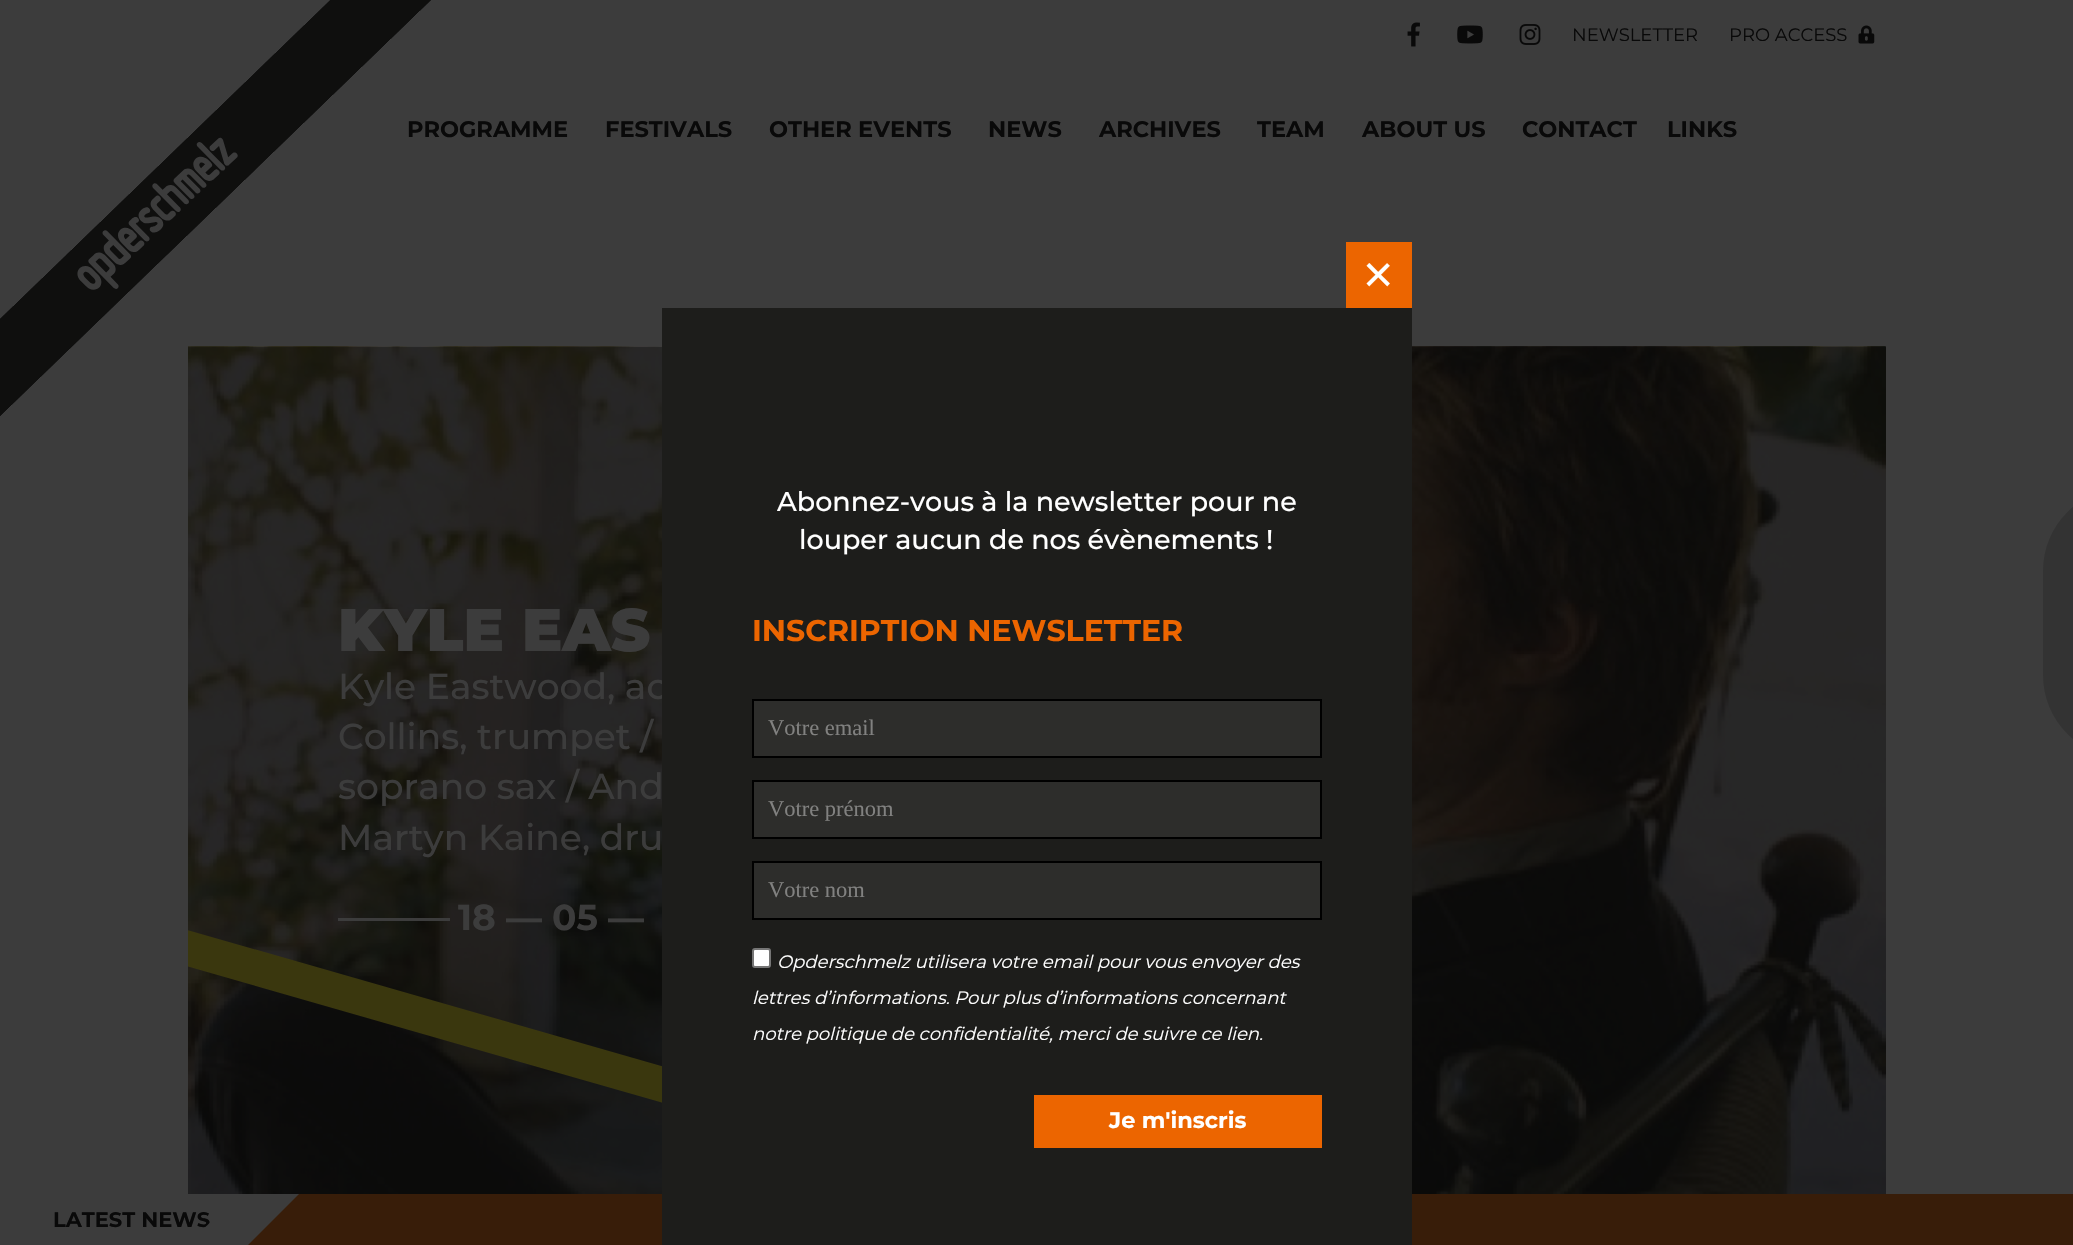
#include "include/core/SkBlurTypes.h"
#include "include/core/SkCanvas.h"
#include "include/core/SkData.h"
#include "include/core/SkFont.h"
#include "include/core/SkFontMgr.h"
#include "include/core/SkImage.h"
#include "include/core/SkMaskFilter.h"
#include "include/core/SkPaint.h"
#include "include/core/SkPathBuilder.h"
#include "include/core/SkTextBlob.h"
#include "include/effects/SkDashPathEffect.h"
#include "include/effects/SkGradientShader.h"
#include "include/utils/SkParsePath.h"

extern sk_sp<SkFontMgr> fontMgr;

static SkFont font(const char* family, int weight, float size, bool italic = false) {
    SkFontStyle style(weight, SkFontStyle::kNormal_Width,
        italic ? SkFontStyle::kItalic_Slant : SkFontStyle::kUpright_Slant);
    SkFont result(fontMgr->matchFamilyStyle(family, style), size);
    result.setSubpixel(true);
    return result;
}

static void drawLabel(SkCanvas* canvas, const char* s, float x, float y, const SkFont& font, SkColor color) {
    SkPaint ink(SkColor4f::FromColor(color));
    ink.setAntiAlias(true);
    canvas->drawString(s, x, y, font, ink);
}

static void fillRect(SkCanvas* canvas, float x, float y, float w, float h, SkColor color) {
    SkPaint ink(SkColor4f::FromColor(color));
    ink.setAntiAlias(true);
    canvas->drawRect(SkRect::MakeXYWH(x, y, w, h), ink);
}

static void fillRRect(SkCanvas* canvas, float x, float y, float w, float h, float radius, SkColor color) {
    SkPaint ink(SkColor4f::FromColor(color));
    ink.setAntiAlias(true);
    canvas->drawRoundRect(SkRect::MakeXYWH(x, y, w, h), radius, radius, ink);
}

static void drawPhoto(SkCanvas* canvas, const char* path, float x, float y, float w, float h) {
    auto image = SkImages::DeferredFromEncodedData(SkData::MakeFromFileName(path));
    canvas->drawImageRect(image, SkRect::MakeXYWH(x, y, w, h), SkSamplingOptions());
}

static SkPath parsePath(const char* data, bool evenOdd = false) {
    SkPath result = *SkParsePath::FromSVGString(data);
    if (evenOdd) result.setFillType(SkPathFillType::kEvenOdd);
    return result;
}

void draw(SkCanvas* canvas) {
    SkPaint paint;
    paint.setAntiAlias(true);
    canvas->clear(0xFF3C3C3C);
    drawPhoto(canvas, "assets/img1.png", 1407, 22, 13, 25);
    drawPhoto(canvas, "assets/img2.png", 1457, 25, 26, 19);
    drawPhoto(canvas, "assets/img3.png", 1519, 24, 22, 21);
    SkFont font1 = font("Montserrat", 400, 18);
    drawLabel(canvas, "NEWSLETTER", 1572, 41, font1, 0xFF090909);
    drawLabel(canvas, "PRO ACCESS", 1729, 41, font1, 0xFF090909);
    drawPhoto(canvas, "assets/img4.png", 1858, 25, 17, 19);
    SkFont font2 = font("Montserrat", 700, 22.5f);
    drawLabel(canvas, "PROGRAMME", 407, 137, font2, 0xFF090909);
    drawPhoto(canvas, "assets/img6.png", 188, 346, 1698, 848);
    drawPhoto(canvas, "assets/img7.png", 188, 346, 1698, 848);
    drawPhoto(canvas, "assets/img5.png", 0, 0, 431, 416);
    drawLabel(canvas, "FESTIVALS", 605, 137, font2, 0xFF090909);
    drawLabel(canvas, "OTHER EVENTS", 769, 137, font2, 0xFF090909);
    drawLabel(canvas, "NEWS", 988, 137, font2, 0xFF090909);
    drawLabel(canvas, "ARCHIVES", 1099, 137, font2, 0xFF090909);
    drawLabel(canvas, "TEAM", 1257, 137, font2, 0xFF090909);
    drawLabel(canvas, "ABOUT US", 1362, 137, font2, 0xFF090909);
    drawLabel(canvas, "CONTACT", 1522, 137, font2, 0xFF090909);
    drawLabel(canvas, "LINKS", 1667, 137, font2, 0xFF090909);
    SkFont font3 = font("Montserrat", 900, 60);
    drawLabel(canvas, "KYLE EAS", 338, 651, font3, 0xFF3C3C3C);
    SkFont font4 = font("Montserrat", 500, 36);
    drawLabel(canvas, "Kyle Eastwood, ac", 338, 699, font4, 0xFF3C3C3C);
    drawLabel(canvas, "Collins, trumpet /", 338, 749, font4, 0xFF3C3C3C);
    drawLabel(canvas, "soprano sax / And", 338, 799, font4, 0xFF3C3C3C);
    drawLabel(canvas, "Martyn Kaine, dru", 338, 850, font4, 0xFF3C3C3C);
    fillRect(canvas, 338, 918, 112, 3, 0xFF3C3C3C);
    SkFont font5 = font("Montserrat", 700, 36);
    drawLabel(canvas, "18", 458, 930, font5, 0xFF3C3C3C);
    SkFont font6 = font("Liberation Sans", 700, 36);
    drawLabel(canvas, "―", 506, 930, font6, 0xFF3C3C3C);
    drawLabel(canvas, "05", 552, 930, font5, 0xFF3C3C3C);
    drawLabel(canvas, "―", 608, 930, font6, 0xFF3C3C3C);
    drawPhoto(canvas, "assets/img8.png", 188, 930, 474, 173);
    fillRRect(canvas, 2043, 488, 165, 270, 135, 0xFF333333);
    fillRect(canvas, 248, 1194, 1825, 51, 0xFF381D09);
    fillRect(canvas, 662, 308, 750, 937, 0xFF1D1D1B);
    fillRect(canvas, 1346, 242, 66, 66, 0xFFEC6500);
    SkFont font7 = font("Liberation Sans", 400, 52);
    drawLabel(canvas, "×", 1363, 292, font7, 0xFFFFFFFF);
    SkFont font8 = font("Montserrat", 500, 27);
    drawLabel(canvas, "Abonnez-vous à la newsletter pour ne", 777, 511, font8, 0xFFFFFFFF);
    drawLabel(canvas, "louper aucun de nos évènements !", 799, 549, font8, 0xFFFFFFFF);
    SkFont font9 = font("Montserrat", 700, 30);
    drawLabel(canvas, "INSCRIPTION NEWSLETTER", 752, 641, font9, 0xFFEC6500);
    paint.setColor(0xFF2D2D2B);
    canvas->drawRect(SkRect::MakeXYWH(753, 700, 568, 57), paint);
    paint.setStroke(true);
    paint.setStrokeWidth(2);
    paint.setColor(0xFF000000);
    canvas->drawRect(SkRect::MakeXYWH(753, 700, 568, 57), paint);
    SkFont font10 = font("Liberation Serif", 400, 22.5f);
    drawLabel(canvas, "Votre email", 768, 735, font10, 0xFF818180);
    paint.setStroke(false);
    paint.setColor(0xFF2D2D2B);
    canvas->drawRect(SkRect::MakeXYWH(753, 781, 568, 57), paint);
    paint.setStroke(true);
    paint.setColor(0xFF000000);
    canvas->drawRect(SkRect::MakeXYWH(753, 781, 568, 57), paint);
    drawLabel(canvas, "Votre prénom", 768, 816, font10, 0xFF818180);
    paint.setStroke(false);
    paint.setColor(0xFF2D2D2B);
    canvas->drawRect(SkRect::MakeXYWH(753, 862, 568, 57), paint);
    paint.setStroke(true);
    paint.setColor(0xFF000000);
    canvas->drawRect(SkRect::MakeXYWH(753, 862, 568, 57), paint);
    drawLabel(canvas, "Votre nom", 768, 897, font10, 0xFF818180);
    paint.setStroke(false);
    paint.setColor(0xFFFFFFFF);
    canvas->drawRoundRect(SkRect::MakeXYWH(753, 949, 17, 18), 2, 2, paint);
    paint.setStroke(true);
    paint.setColor(0xFF767676);
    canvas->drawRoundRect(SkRect::MakeXYWH(753, 949, 17, 18), 2, 2, paint);
    SkFont font11 = font("Montserrat", 400, 18, true);
    drawLabel(canvas, "Opderschmelz utilisera votre email pour vous envoyer des", 777, 968, font11, 0xFFFFFFFF);
    drawLabel(canvas, "lettres d’informations. Pour plus d’informations concernant", 752, 1004, font11, 0xFFFFFFFF);
    drawLabel(canvas, "notre politique de confidentialité, merci de suivre ce lien.", 752, 1040, font11, 0xFFFFFFFF);
    fillRect(canvas, 1034, 1095, 288, 53, 0xFFEC6500);
    drawLabel(canvas, "Je m'inscris", 1109, 1128, font2, 0xFFFFFFFF);
    SkFont font12 = font("Montserrat", 700, 21);
    drawLabel(canvas, "LATEST NEWS", 53, 1227, font12, 0xFF090909);
    paint.setStroke(false);
    paint.setColor(0xFF3C3C3C);
    canvas->drawPath(parsePath("M239 1194H299L231 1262L171 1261Z"), paint);
}
